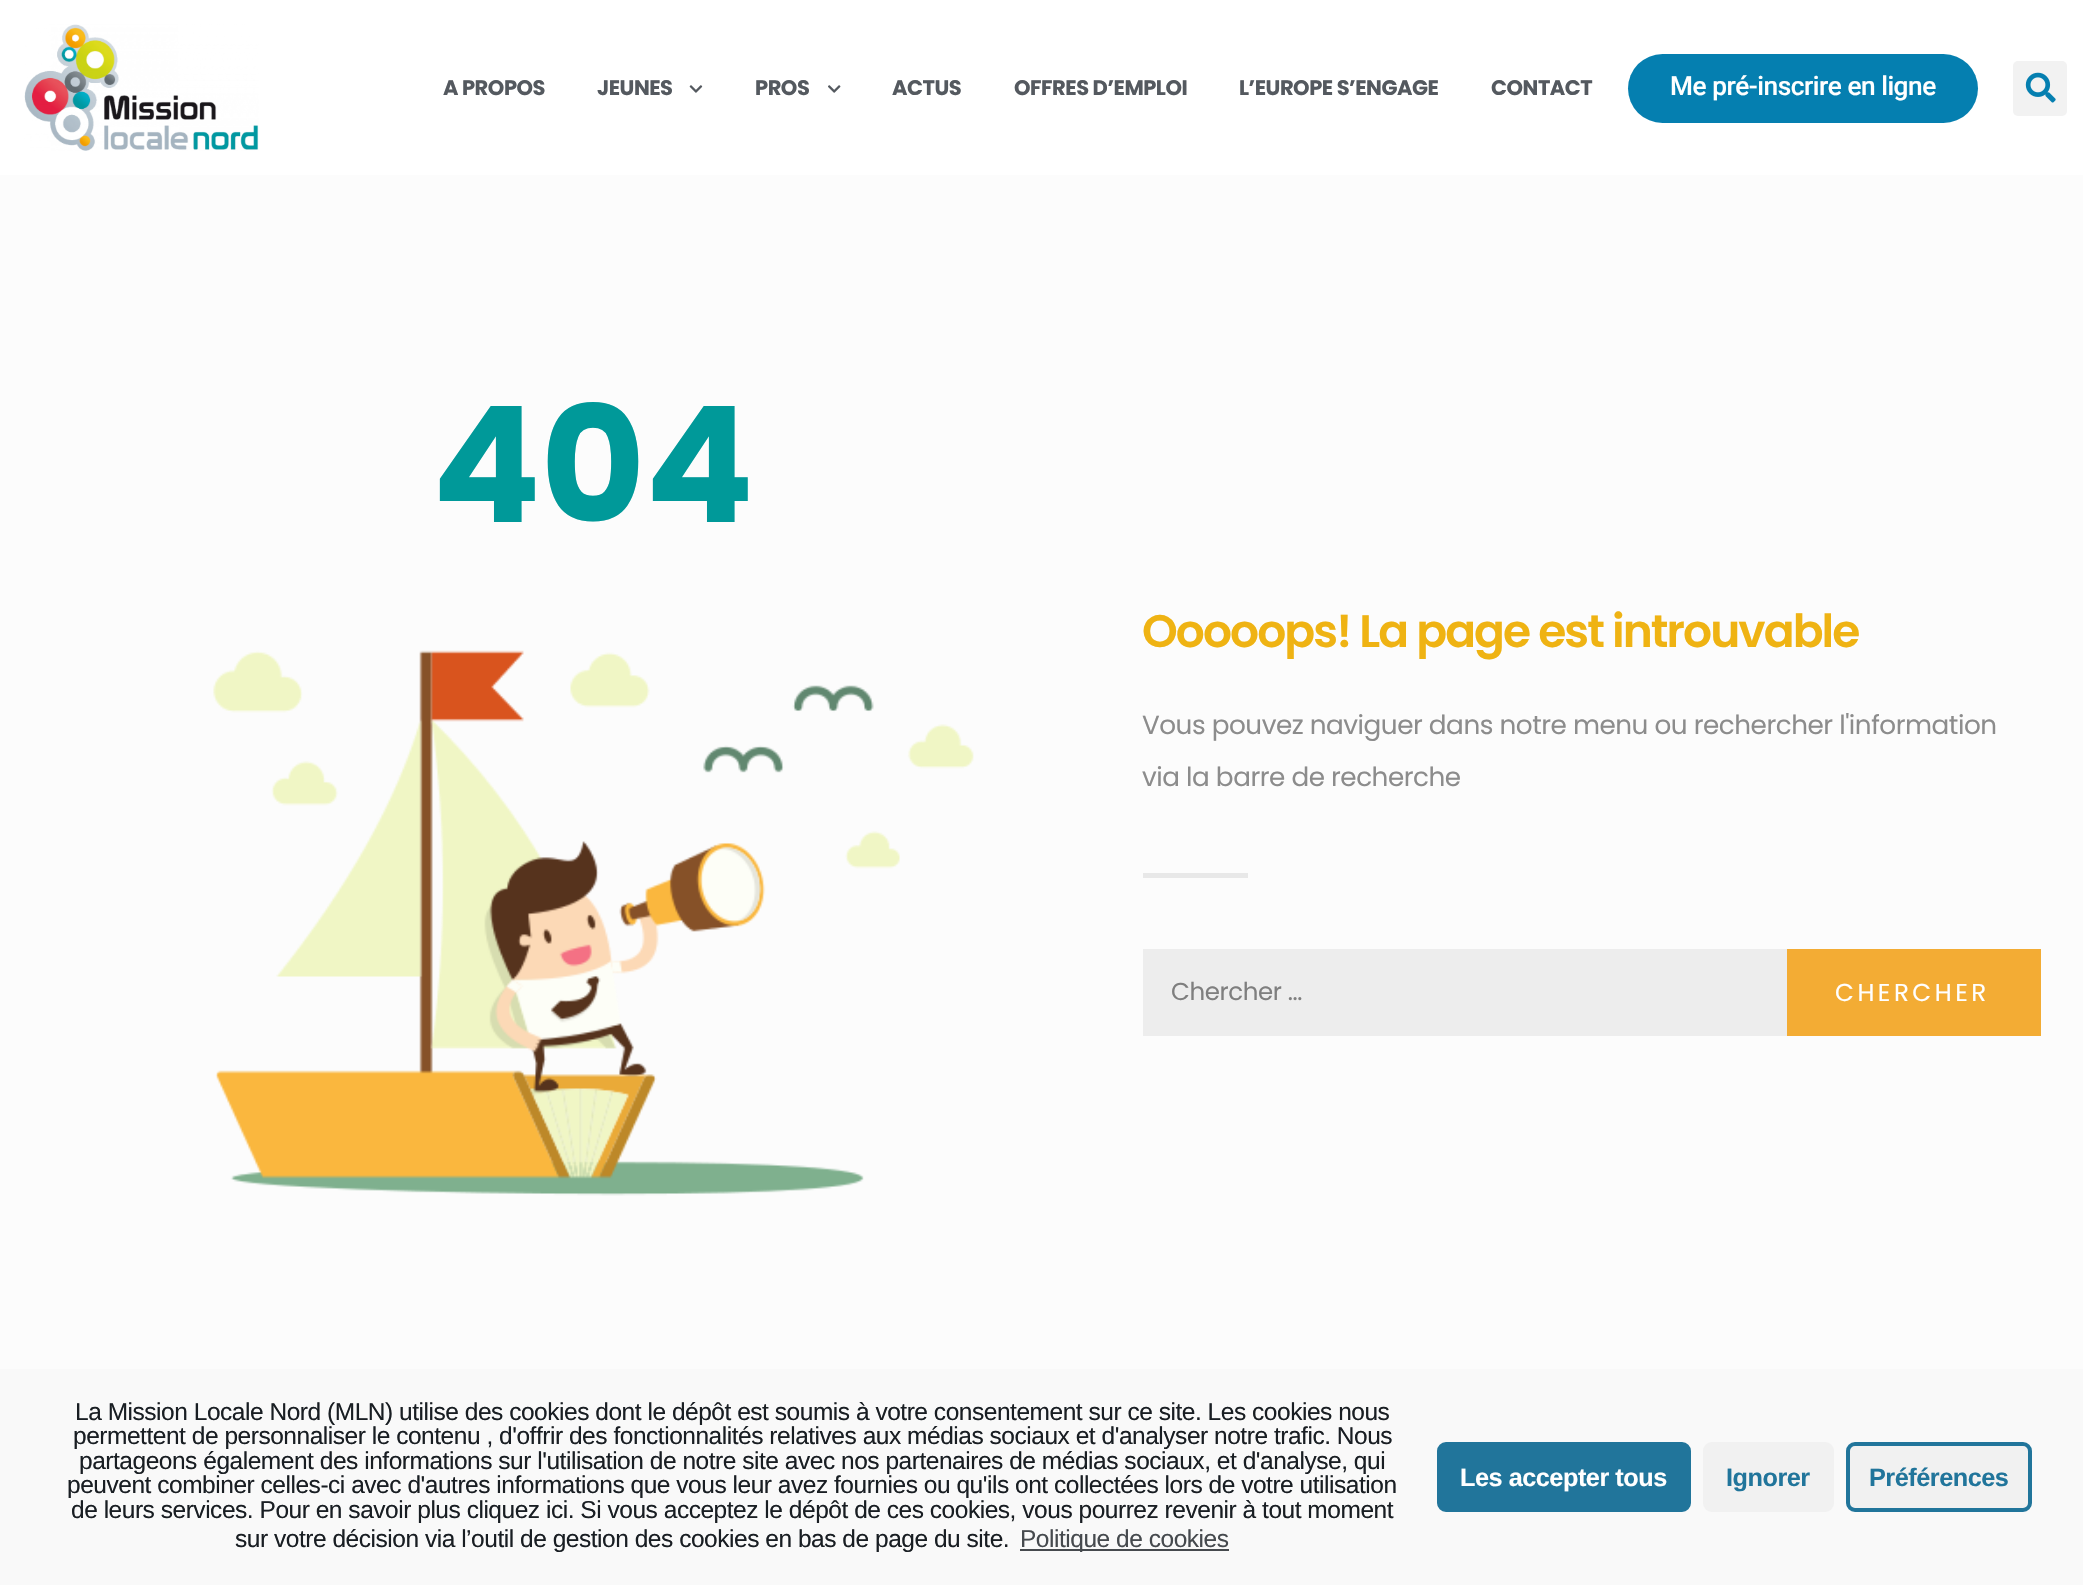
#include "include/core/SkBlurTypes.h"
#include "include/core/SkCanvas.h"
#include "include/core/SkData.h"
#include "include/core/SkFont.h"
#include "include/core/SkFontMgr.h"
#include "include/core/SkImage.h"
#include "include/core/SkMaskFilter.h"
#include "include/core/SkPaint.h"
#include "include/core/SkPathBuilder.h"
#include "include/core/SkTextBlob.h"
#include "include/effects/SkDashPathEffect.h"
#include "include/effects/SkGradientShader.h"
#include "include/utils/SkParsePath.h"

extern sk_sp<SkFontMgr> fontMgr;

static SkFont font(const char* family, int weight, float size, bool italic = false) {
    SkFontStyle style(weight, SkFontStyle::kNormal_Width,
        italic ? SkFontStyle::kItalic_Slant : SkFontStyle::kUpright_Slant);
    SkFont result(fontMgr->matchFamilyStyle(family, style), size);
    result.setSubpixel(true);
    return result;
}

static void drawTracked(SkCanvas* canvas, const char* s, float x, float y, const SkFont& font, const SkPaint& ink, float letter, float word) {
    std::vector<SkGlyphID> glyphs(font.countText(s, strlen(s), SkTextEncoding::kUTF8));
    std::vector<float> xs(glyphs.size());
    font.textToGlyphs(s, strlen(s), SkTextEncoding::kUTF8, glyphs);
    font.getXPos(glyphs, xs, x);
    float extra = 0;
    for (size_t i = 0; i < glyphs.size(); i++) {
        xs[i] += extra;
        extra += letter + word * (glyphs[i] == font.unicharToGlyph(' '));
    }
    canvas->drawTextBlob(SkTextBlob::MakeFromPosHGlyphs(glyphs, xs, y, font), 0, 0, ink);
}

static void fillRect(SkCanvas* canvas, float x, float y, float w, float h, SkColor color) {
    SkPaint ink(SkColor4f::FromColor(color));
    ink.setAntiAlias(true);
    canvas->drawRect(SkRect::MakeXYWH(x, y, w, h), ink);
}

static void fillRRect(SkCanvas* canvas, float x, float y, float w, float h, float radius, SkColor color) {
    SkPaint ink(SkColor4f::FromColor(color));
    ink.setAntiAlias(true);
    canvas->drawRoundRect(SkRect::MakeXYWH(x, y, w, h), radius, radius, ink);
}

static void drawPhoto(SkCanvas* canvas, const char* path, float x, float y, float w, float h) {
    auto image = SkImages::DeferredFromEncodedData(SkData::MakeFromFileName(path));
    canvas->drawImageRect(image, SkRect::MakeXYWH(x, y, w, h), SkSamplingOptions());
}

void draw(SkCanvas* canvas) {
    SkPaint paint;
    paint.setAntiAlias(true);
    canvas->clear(0xFFFCFCFC);
    fillRect(canvas, 0, 0, 2083, 175, 0xFFFFFFFF);
    drawPhoto(canvas, "assets/img1.png", 24, 24, 235, 127);
    SkFont font1 = font("Poppins", 700, 21);
    paint.setColor(0xFF54595F);
    drawTracked(canvas, "A PROPOS", 443, 95, font1, paint, -0.47f, 0);
    drawTracked(canvas, "JEUNES", 597, 95, font1, paint, -0.47f, 0);
    drawPhoto(canvas, "assets/img2.png", 689, 85, 14, 8);
    drawTracked(canvas, "PROS", 755, 95, font1, paint, -0.47f, 0);
    drawPhoto(canvas, "assets/img3.png", 828, 85, 13, 8);
    drawTracked(canvas, "ACTUS", 892, 95, font1, paint, -0.47f, 0);
    drawTracked(canvas, "OFFRES D’EMPLOI", 1014, 95, font1, paint, -0.47f, 0);
    drawTracked(canvas, "L’EUROPE S’ENGAGE", 1239, 95, font1, paint, -0.47f, 0);
    drawTracked(canvas, "CONTACT", 1491, 95, font1, paint, -0.47f, 0);
    fillRRect(canvas, 1628, 54, 350, 69, 34.5f, 0xFF057FB0);
    SkFont font2 = font("Roboto", 500, 26.25f);
    paint.setColor(0xFFFFFFFF);
    drawTracked(canvas, "Me pré-inscrire en ligne", 1670, 95, font2, paint, -0.47f, 0);
    fillRRect(canvas, 2013, 61, 54, 55, 5, 0xFFF2F2F2);
    drawPhoto(canvas, "assets/img4.png", 2025, 72, 31, 31);
    SkFont font3 = font("Poppins", 700, 161);
    paint.setColor(0xFF009999);
    drawTracked(canvas, "404", 432, 522, font3, paint, -0.47f, 0);
    drawPhoto(canvas, "assets/img5.png", 213, 650, 761, 546);
    SkFont font4 = font("Poppins", 600, 45.5f);
    paint.setColor(0xFFEFB313);
    drawTracked(canvas, "Ooooops! La page est introuvable", 1142, 647, font4, paint, -1.9f, 0);
    SkFont font5 = font("Poppins", 400, 26.25f);
    paint.setColor(0xFF8C8C8C);
    drawTracked(canvas, "Vous pouvez naviguer dans notre menu ou rechercher l'information", 1142, 734, font5, paint, -0.47f, 0);
    drawTracked(canvas, "via la barre de recherche", 1142, 786, font5, paint, -0.47f, 0);
    fillRect(canvas, 1143, 873, 105, 5, 0xFFE8E8E8);
    fillRect(canvas, 1143, 949, 644, 87, 0xFFEDEDED);
    SkFont font6 = font("Poppins", 400, 24.5f);
    paint.setColor(0xFF7F7F7F);
    drawTracked(canvas, "Chercher ...", 1171, 1000, font6, paint, -0.4f, 0);
    fillRect(canvas, 1787, 949, 254, 87, 0xFFF3AC34);
    paint.setColor(0xFFFFFFFF);
    drawTracked(canvas, "CHERCHER", 1835, 1001, font6, paint, 3.5f, 0);
    fillRect(canvas, 0, 1369, 2083, 216, 0xFFF9F9F9);
    SkFont font7 = font("Liberation Sans", 400, 24.5f);
    paint.setColor(0xFF191E23);
    drawTracked(canvas, "La Mission Locale Nord (MLN) utilise des cookies dont le dépôt est soumis à votre consentement sur ce site. Les cookies nous", 75, 1420, font7, paint, -0.47f, 0);
    drawTracked(canvas, "permettent de personnaliser le contenu , d'offrir des fonctionnalités relatives aux médias sociaux et d'analyser notre trafic. Nous", 73, 1444, font7, paint, -0.47f, 0);
    drawTracked(canvas, "partageons également des informations sur l'utilisation de notre site avec nos partenaires de médias sociaux, et d'analyse, qui", 79, 1469, font7, paint, -0.47f, 0);
    drawTracked(canvas, "peuvent combiner celles-ci avec d'autres informations que vous leur avez fournies ou qu'ils ont collectées lors de votre utilisation", 67, 1493, font7, paint, -0.47f, 0);
    drawTracked(canvas, "de leurs services. Pour en savoir plus cliquez ici. Si vous acceptez le dépôt de ces cookies, vous pourrez revenir à tout moment", 71, 1518, font7, paint, -0.47f, 0);
    drawTracked(canvas, "sur votre décision via l’outil de gestion des cookies en bas de page du site.", 235, 1547, font7, paint, -0.47f, 0);
    fillRect(canvas, 1020, 1549, 209, 2, 0xFF464A4E);
    paint.setColor(0xFF464A4E);
    drawTracked(canvas, "Politique de cookies", 1020, 1547, font7, paint, -0.47f, 0);
    paint.setColor(0xFF21759B);
    canvas->drawRoundRect(SkRect::MakeXYWH(1439, 1444, 250, 66), 7, 7, paint);
    paint.setStroke(true);
    paint.setStrokeWidth(4);
    canvas->drawRoundRect(SkRect::MakeXYWH(1439, 1444, 250, 66), 7, 7, paint);
    SkFont font8 = font("Liberation Sans", 700, 25.25f);
    paint.setStroke(false);
    paint.setColor(0xFFFFFFFF);
    drawTracked(canvas, "Les accepter tous", 1460, 1486, font8, paint, -0.47f, 0);
    fillRRect(canvas, 1703, 1442, 131, 70, 9, 0xFFF1F1F1);
    paint.setColor(0xFF21759B);
    drawTracked(canvas, "Ignorer", 1726, 1486, font8, paint, -0.47f, 0);
    paint.setColor(0xFFF1F1F1);
    canvas->drawRoundRect(SkRect::MakeXYWH(1848, 1444, 182, 66), 7, 7, paint);
    paint.setStroke(true);
    paint.setColor(0xFF21759B);
    canvas->drawRoundRect(SkRect::MakeXYWH(1848, 1444, 182, 66), 7, 7, paint);
    paint.setStroke(false);
    drawTracked(canvas, "Préférences", 1869, 1486, font8, paint, -0.47f, 0);
}
